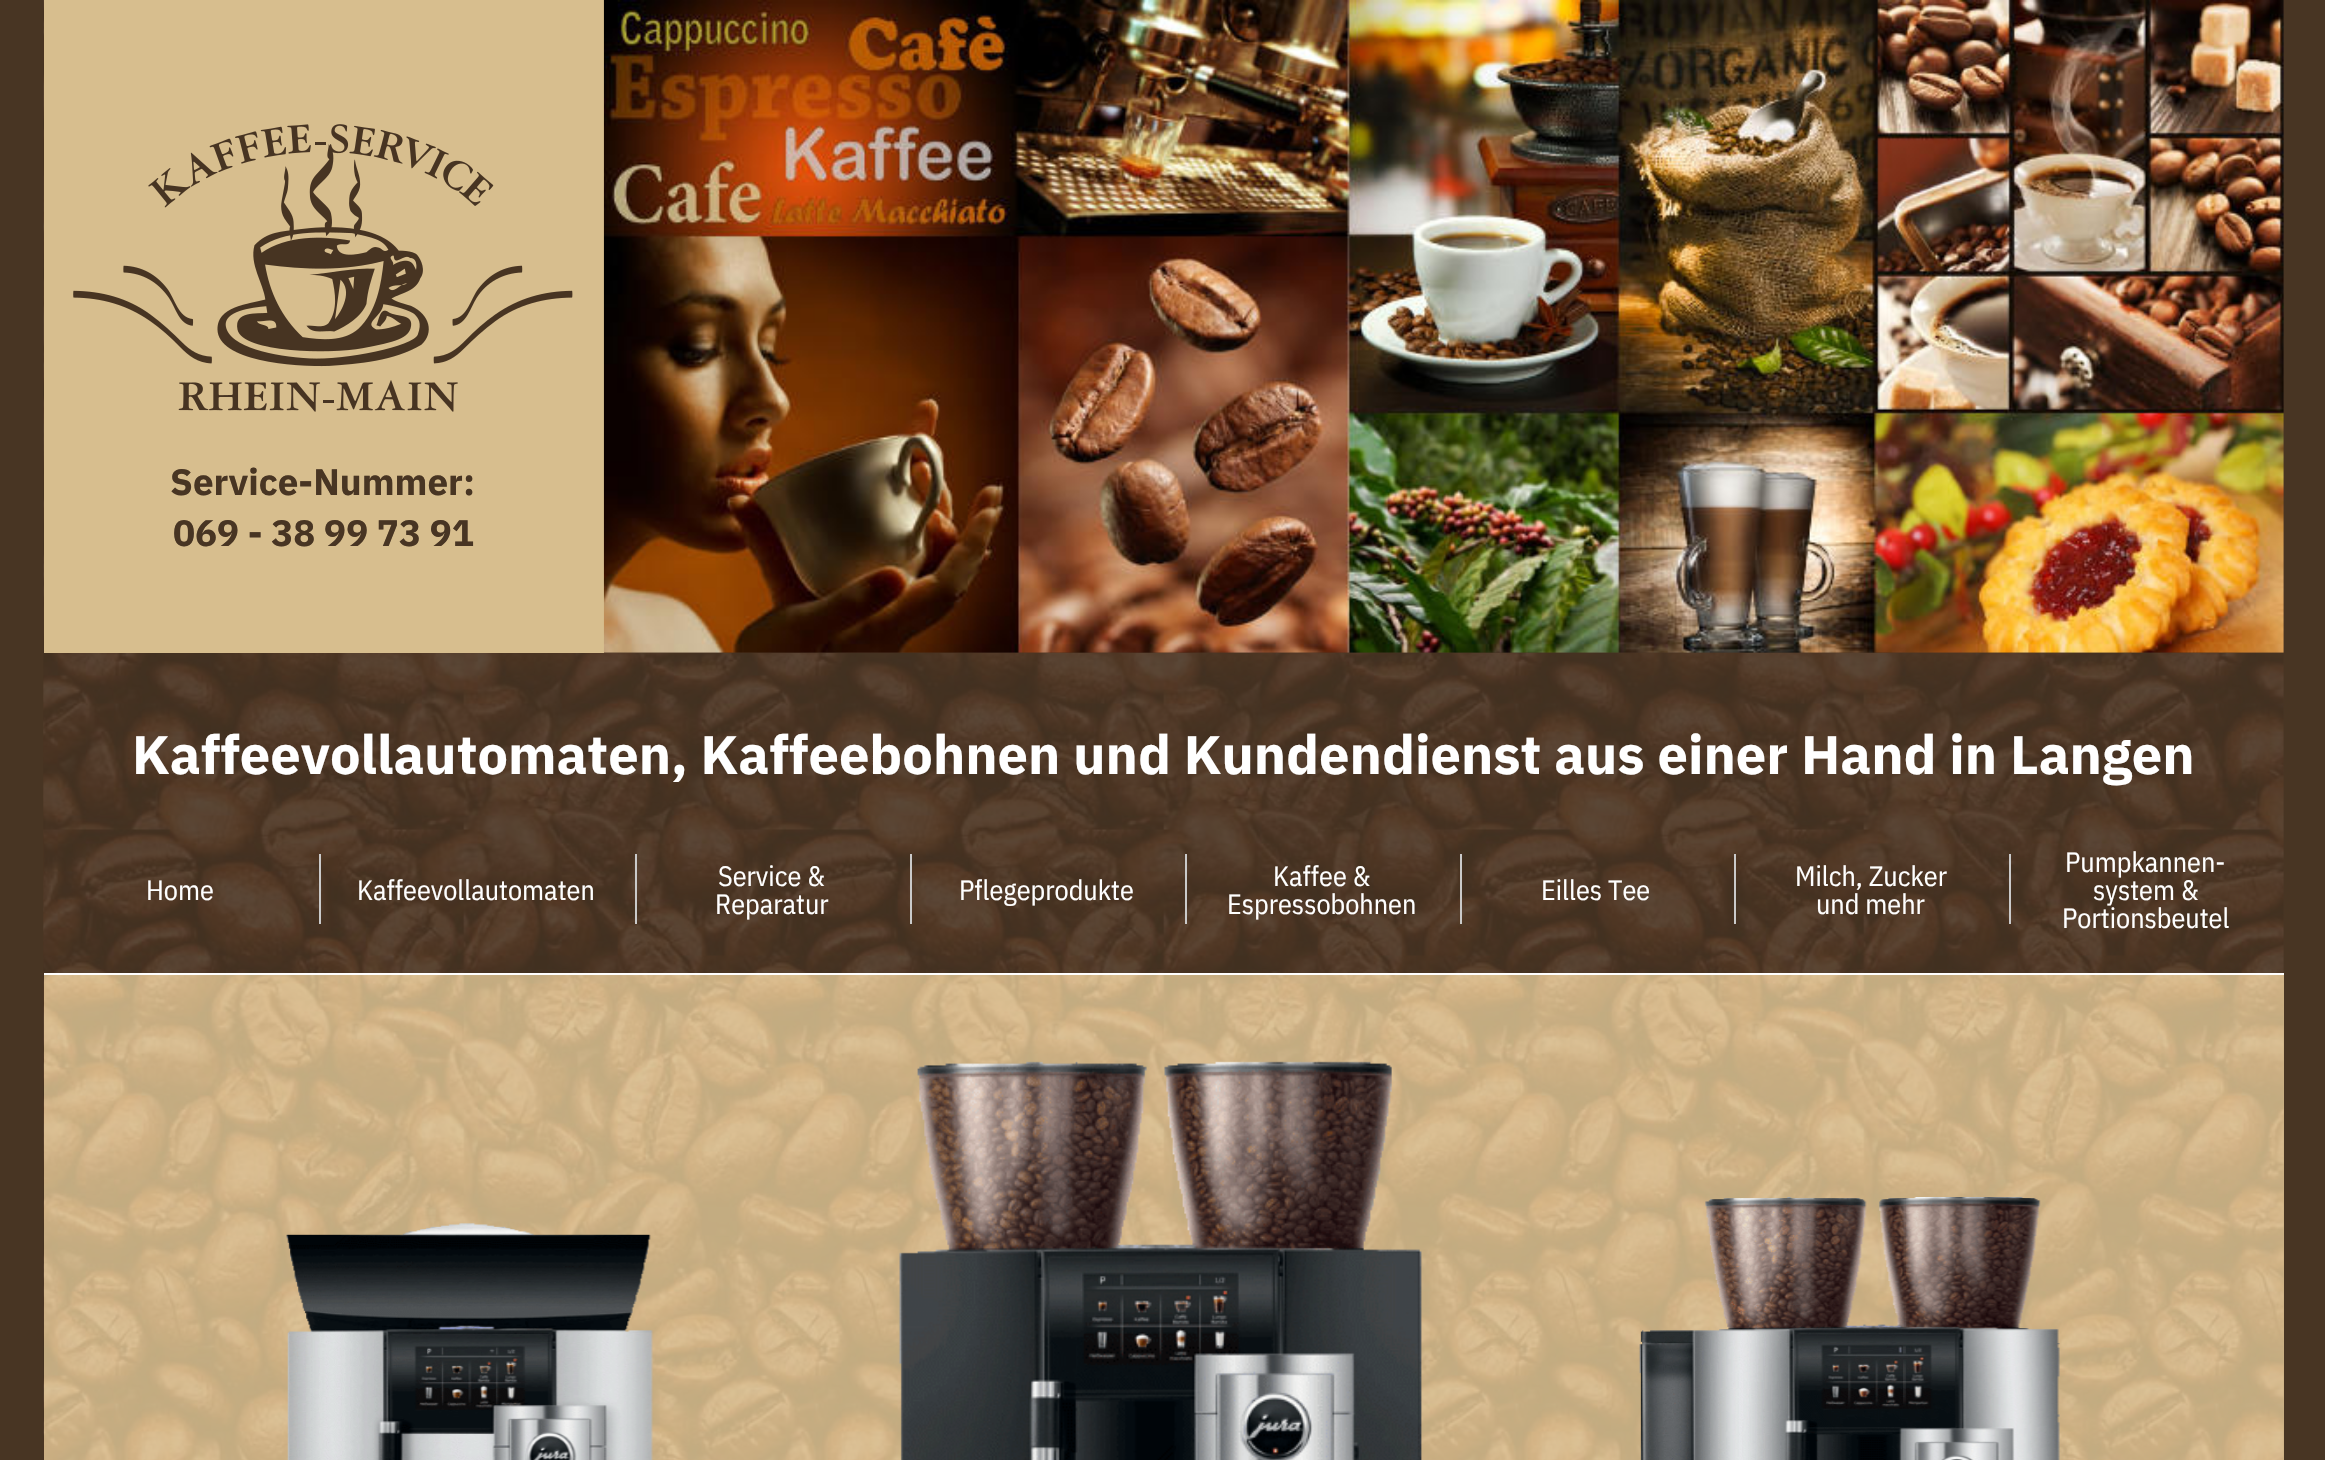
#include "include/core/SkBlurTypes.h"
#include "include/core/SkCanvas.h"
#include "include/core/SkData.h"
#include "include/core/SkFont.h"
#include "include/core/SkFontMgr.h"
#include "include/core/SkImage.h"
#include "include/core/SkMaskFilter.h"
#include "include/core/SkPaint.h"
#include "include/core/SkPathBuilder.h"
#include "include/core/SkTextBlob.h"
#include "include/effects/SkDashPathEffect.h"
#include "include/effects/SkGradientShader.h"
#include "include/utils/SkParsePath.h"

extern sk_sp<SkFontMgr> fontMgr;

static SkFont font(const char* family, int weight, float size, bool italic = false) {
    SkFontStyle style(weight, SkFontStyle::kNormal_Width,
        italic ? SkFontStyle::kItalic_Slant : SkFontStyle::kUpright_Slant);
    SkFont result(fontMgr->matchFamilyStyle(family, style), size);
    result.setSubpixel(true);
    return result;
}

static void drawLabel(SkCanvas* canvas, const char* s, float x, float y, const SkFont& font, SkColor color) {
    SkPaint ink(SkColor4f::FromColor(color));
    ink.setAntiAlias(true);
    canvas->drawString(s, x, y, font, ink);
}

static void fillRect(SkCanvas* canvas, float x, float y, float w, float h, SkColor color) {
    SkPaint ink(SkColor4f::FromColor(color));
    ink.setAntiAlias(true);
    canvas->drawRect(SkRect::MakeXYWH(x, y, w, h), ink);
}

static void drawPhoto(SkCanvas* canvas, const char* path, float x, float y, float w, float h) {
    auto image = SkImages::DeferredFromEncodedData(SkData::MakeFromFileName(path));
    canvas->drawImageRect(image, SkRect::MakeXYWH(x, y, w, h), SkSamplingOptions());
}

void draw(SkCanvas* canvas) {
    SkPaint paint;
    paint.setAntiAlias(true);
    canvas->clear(0xFF483523);
    drawPhoto(canvas, "assets/img1.png", 43, 0, 2241, 1460);
    fillRect(canvas, 44, 0, 560, 653, 0xFFD7BE8E);
    drawPhoto(canvas, "assets/img2.png", 73, 124, 500, 288);
    SkFont font1 = font("IBM Plex Sans", 700, 36.75f);
    drawLabel(canvas, "Service-Nummer:", 170, 495, font1, 0xFF483523);
    drawLabel(canvas, "069 - 38 99 73 91", 173, 546, font1, 0xFF483523);
    fillRect(canvas, 604, 0, 1680, 653, 0xFF483523);
    drawPhoto(canvas, "assets/img3.png", 603, 0, 1681, 653);
    fillRect(canvas, 44, 653, 2240, 173, 0xE6483523);
    SkFont font2 = font("IBM Plex Sans", 700, 54.25f);
    drawLabel(canvas, "Kaffeevollautomaten, Kaffeebohnen und Kundendienst aus einer Hand in Langen", 132, 774, font2, 0xFFFFFFFF);
    fillRect(canvas, 44, 826, 2240, 147, 0xE6483523);
    SkFont font3 = font("IBM Plex Sans Condensed", 400, 28);
    drawLabel(canvas, "Home", 146, 900, font3, 0xFFFFFFFF);
    fillRect(canvas, 319, 854, 2, 70, 0xFFCACACA);
    drawLabel(canvas, "Kaffeevollautomaten", 357, 900, font3, 0xFFFFFFFF);
    fillRect(canvas, 635, 854, 2, 70, 0xFFCACACA);
    drawLabel(canvas, "Service &", 718, 886, font3, 0xFFFFFFFF);
    drawLabel(canvas, "Reparatur", 715, 914, font3, 0xFFFFFFFF);
    fillRect(canvas, 910, 854, 2, 70, 0xFFCACACA);
    drawLabel(canvas, "Pflegeprodukte", 959, 900, font3, 0xFFFFFFFF);
    fillRect(canvas, 1185, 854, 2, 70, 0xFFCACACA);
    drawLabel(canvas, "Kaffee &", 1273, 886, font3, 0xFFFFFFFF);
    drawLabel(canvas, "Espressobohnen", 1227, 914, font3, 0xFFFFFFFF);
    fillRect(canvas, 1460, 854, 2, 70, 0xFFCACACA);
    drawLabel(canvas, "Eilles Tee", 1541, 900, font3, 0xFFFFFFFF);
    fillRect(canvas, 1734, 854, 2, 70, 0xFFCACACA);
    drawLabel(canvas, "Milch, Zucker", 1795, 886, font3, 0xFFFFFFFF);
    drawLabel(canvas, "und mehr", 1816, 914, font3, 0xFFFFFFFF);
    fillRect(canvas, 2009, 854, 2, 70, 0xFFCACACA);
    drawLabel(canvas, "Pumpkannen-", 2065, 872, font3, 0xFFFFFFFF);
    drawLabel(canvas, "system &", 2093, 900, font3, 0xFFFFFFFF);
    drawLabel(canvas, "Portionsbeutel", 2062, 928, font3, 0xFFFFFFFF);
    fillRect(canvas, 44, 973, 2240, 2, 0xFFFFFFFF);
    fillRect(canvas, 44, 975, 2240, 485, 0xE6D7BE8E);
    drawPhoto(canvas, "assets/img4.png", 286, 1223, 367, 237);
    drawPhoto(canvas, "assets/img5.png", 899, 1061, 523, 399);
    drawPhoto(canvas, "assets/img6.png", 1639, 1197, 421, 263);
}
